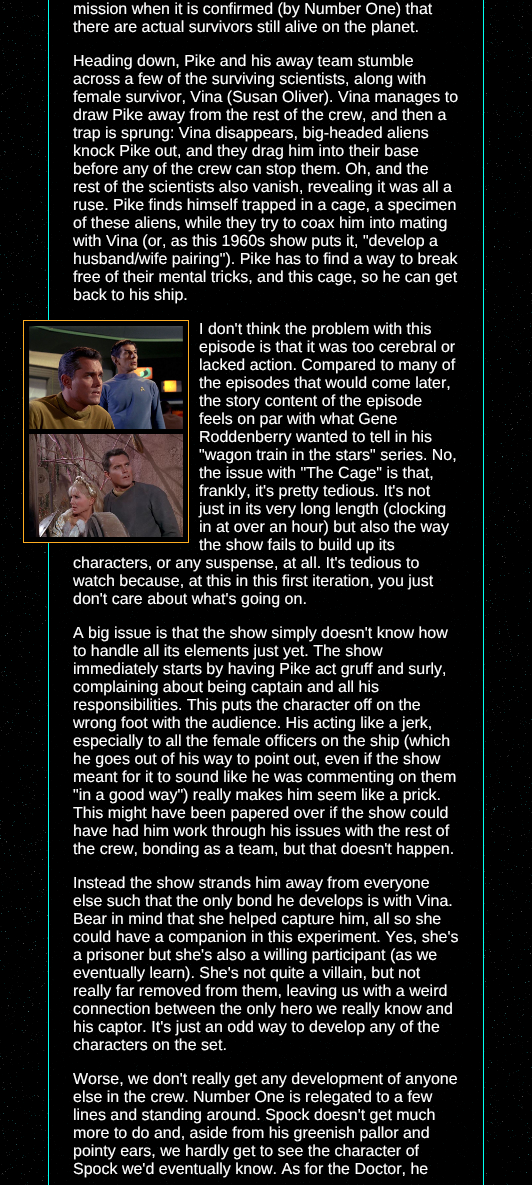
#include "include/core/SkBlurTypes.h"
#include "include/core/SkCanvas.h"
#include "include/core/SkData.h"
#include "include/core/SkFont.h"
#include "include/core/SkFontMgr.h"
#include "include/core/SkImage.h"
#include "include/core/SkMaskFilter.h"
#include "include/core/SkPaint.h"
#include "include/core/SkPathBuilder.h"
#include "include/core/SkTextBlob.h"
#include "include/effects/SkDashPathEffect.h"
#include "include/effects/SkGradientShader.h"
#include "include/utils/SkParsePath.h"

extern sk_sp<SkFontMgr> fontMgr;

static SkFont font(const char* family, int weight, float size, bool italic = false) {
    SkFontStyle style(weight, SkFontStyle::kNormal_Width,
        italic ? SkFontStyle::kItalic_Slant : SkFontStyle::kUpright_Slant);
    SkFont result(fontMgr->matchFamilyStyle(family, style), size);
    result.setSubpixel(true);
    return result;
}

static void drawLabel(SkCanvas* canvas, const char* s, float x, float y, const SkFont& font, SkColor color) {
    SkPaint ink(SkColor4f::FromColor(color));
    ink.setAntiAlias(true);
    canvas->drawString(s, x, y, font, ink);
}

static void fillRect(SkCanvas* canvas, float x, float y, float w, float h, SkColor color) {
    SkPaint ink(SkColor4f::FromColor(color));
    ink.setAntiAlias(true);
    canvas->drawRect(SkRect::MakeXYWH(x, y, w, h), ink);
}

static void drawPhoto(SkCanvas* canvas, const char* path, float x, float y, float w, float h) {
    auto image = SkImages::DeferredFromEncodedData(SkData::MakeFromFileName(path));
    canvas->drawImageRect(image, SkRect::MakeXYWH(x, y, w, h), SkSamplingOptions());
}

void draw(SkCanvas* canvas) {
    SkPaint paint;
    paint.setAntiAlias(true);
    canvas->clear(0xFFFFFFFF);
    drawPhoto(canvas, "assets/img1.png", 0, 0, 532, 1185);
    fillRect(canvas, 60, 0, 412, 1185, 0xCC000000);
    drawPhoto(canvas, "assets/img2.png", 48, 0, 436, 1185);
    SkFont font1 = font("Liberation Sans", 400, 16);
    drawLabel(canvas, "mission when it is confirmed (by Number One) that", 73, 14, font1, 0xFFFFFFFF);
    drawLabel(canvas, "there are actual survivors still alive on the planet.", 73, 32, font1, 0xFFFFFFFF);
    drawLabel(canvas, "Heading down, Pike and his away team stumble", 73, 66, font1, 0xFFFFFFFF);
    drawLabel(canvas, "across a few of the surviving scientists, along with", 73, 84, font1, 0xFFFFFFFF);
    drawLabel(canvas, "female survivor, Vina (Susan Oliver). Vina manages to", 73, 102, font1, 0xFFFFFFFF);
    drawLabel(canvas, "draw Pike away from the rest of the crew, and then a", 73, 120, font1, 0xFFFFFFFF);
    drawLabel(canvas, "trap is sprung: Vina disappears, big-headed aliens", 73, 138, font1, 0xFFFFFFFF);
    drawLabel(canvas, "knock Pike out, and they drag him into their base", 73, 156, font1, 0xFFFFFFFF);
    drawLabel(canvas, "before any of the crew can stop them. Oh, and the", 73, 174, font1, 0xFFFFFFFF);
    drawLabel(canvas, "rest of the scientists also vanish, revealing it was all a", 73, 192, font1, 0xFFFFFFFF);
    drawLabel(canvas, "ruse. Pike finds himself trapped in a cage, a specimen", 73, 210, font1, 0xFFFFFFFF);
    drawLabel(canvas, "of these aliens, while they try to coax him into mating", 73, 228, font1, 0xFFFFFFFF);
    drawLabel(canvas, "with Vina (or, as this 1960s show puts it, \"develop a", 73, 246, font1, 0xFFFFFFFF);
    drawLabel(canvas, "husband/wife pairing\"). Pike has to find a way to break", 73, 264, font1, 0xFFFFFFFF);
    drawLabel(canvas, "free of their mental tricks, and this cage, so he can get", 73, 282, font1, 0xFFFFFFFF);
    drawLabel(canvas, "back to his ship.", 73, 300, font1, 0xFFFFFFFF);
    paint.setColor(0xFF000000);
    canvas->drawRect(SkRect::MakeXYWH(23.5f, 320.5f, 165, 222), paint);
    paint.setStroke(true);
    paint.setStrokeWidth(1);
    paint.setColor(0xFFFEAD21);
    canvas->drawRect(SkRect::MakeXYWH(23.5f, 320.5f, 165, 222), paint);
    drawPhoto(canvas, "assets/img3.png", 29, 326, 154, 103);
    drawPhoto(canvas, "assets/img4.png", 29, 434, 154, 103);
    drawLabel(canvas, "I don't think the problem with this", 199, 334, font1, 0xFFFFFFFF);
    drawLabel(canvas, "episode is that it was too cerebral or", 199, 352, font1, 0xFFFFFFFF);
    drawLabel(canvas, "lacked action. Compared to many of", 199, 370, font1, 0xFFFFFFFF);
    drawLabel(canvas, "the episodes that would come later,", 199, 388, font1, 0xFFFFFFFF);
    drawLabel(canvas, "the story content of the episode", 199, 406, font1, 0xFFFFFFFF);
    drawLabel(canvas, "feels on par with what Gene", 199, 424, font1, 0xFFFFFFFF);
    drawLabel(canvas, "Roddenberry wanted to tell in his", 199, 442, font1, 0xFFFFFFFF);
    drawLabel(canvas, "\"wagon train in the stars\" series. No,", 199, 460, font1, 0xFFFFFFFF);
    drawLabel(canvas, "the issue with \"The Cage\" is that,", 199, 478, font1, 0xFFFFFFFF);
    drawLabel(canvas, "frankly, it's pretty tedious. It's not", 199, 496, font1, 0xFFFFFFFF);
    drawLabel(canvas, "just in its very long length (clocking", 199, 514, font1, 0xFFFFFFFF);
    drawLabel(canvas, "in at over an hour) but also the way", 199, 532, font1, 0xFFFFFFFF);
    drawLabel(canvas, "the show fails to build up its", 199, 550, font1, 0xFFFFFFFF);
    drawLabel(canvas, "characters, or any suspense, at all. It's tedious to", 73, 568, font1, 0xFFFFFFFF);
    drawLabel(canvas, "watch because, at this in this first iteration, you just", 73, 586, font1, 0xFFFFFFFF);
    drawLabel(canvas, "don't care about what's going on.", 73, 604, font1, 0xFFFFFFFF);
    drawLabel(canvas, "A big issue is that the show simply doesn't know how", 73, 638, font1, 0xFFFFFFFF);
    drawLabel(canvas, "to handle all its elements just yet. The show", 73, 656, font1, 0xFFFFFFFF);
    drawLabel(canvas, "immediately starts by having Pike act gruff and surly,", 73, 674, font1, 0xFFFFFFFF);
    drawLabel(canvas, "complaining about being captain and all his", 73, 692, font1, 0xFFFFFFFF);
    drawLabel(canvas, "responsibilities. This puts the character off on the", 73, 710, font1, 0xFFFFFFFF);
    drawLabel(canvas, "wrong foot with the audience. His acting like a jerk,", 73, 728, font1, 0xFFFFFFFF);
    drawLabel(canvas, "especially to all the female officers on the ship (which", 73, 746, font1, 0xFFFFFFFF);
    drawLabel(canvas, "he goes out of his way to point out, even if the show", 73, 764, font1, 0xFFFFFFFF);
    drawLabel(canvas, "meant for it to sound like he was commenting on them", 73, 782, font1, 0xFFFFFFFF);
    drawLabel(canvas, "\"in a good way\") really makes him seem like a prick.", 73, 800, font1, 0xFFFFFFFF);
    drawLabel(canvas, "This might have been papered over if the show could", 73, 818, font1, 0xFFFFFFFF);
    drawLabel(canvas, "have had him work through his issues with the rest of", 73, 836, font1, 0xFFFFFFFF);
    drawLabel(canvas, "the crew, bonding as a team, but that doesn't happen.", 73, 854, font1, 0xFFFFFFFF);
    drawLabel(canvas, "Instead the show strands him away from everyone", 73, 888, font1, 0xFFFFFFFF);
    drawLabel(canvas, "else such that the only bond he develops is with Vina.", 73, 906, font1, 0xFFFFFFFF);
    drawLabel(canvas, "Bear in mind that she helped capture him, all so she", 73, 924, font1, 0xFFFFFFFF);
    drawLabel(canvas, "could have a companion in this experiment. Yes, she's", 73, 942, font1, 0xFFFFFFFF);
    drawLabel(canvas, "a prisoner but she's also a willing participant (as we", 73, 960, font1, 0xFFFFFFFF);
    drawLabel(canvas, "eventually learn). She's not quite a villain, but not", 73, 978, font1, 0xFFFFFFFF);
    drawLabel(canvas, "really far removed from them, leaving us with a weird", 73, 996, font1, 0xFFFFFFFF);
    drawLabel(canvas, "connection between the only hero we really know and", 73, 1014, font1, 0xFFFFFFFF);
    drawLabel(canvas, "his captor. It's just an odd way to develop any of the", 73, 1032, font1, 0xFFFFFFFF);
    drawLabel(canvas, "characters on the set.", 73, 1050, font1, 0xFFFFFFFF);
    drawLabel(canvas, "Worse, we don't really get any development of anyone", 73, 1084, font1, 0xFFFFFFFF);
    drawLabel(canvas, "else in the crew. Number One is relegated to a few", 73, 1102, font1, 0xFFFFFFFF);
    drawLabel(canvas, "lines and standing around. Spock doesn't get much", 73, 1120, font1, 0xFFFFFFFF);
    drawLabel(canvas, "more to do and, aside from his greenish pallor and", 73, 1138, font1, 0xFFFFFFFF);
    drawLabel(canvas, "pointy ears, we hardly get to see the character of", 73, 1156, font1, 0xFFFFFFFF);
    drawLabel(canvas, "Spock we'd eventually know. As for the Doctor, he", 73, 1174, font1, 0xFFFFFFFF);
}
